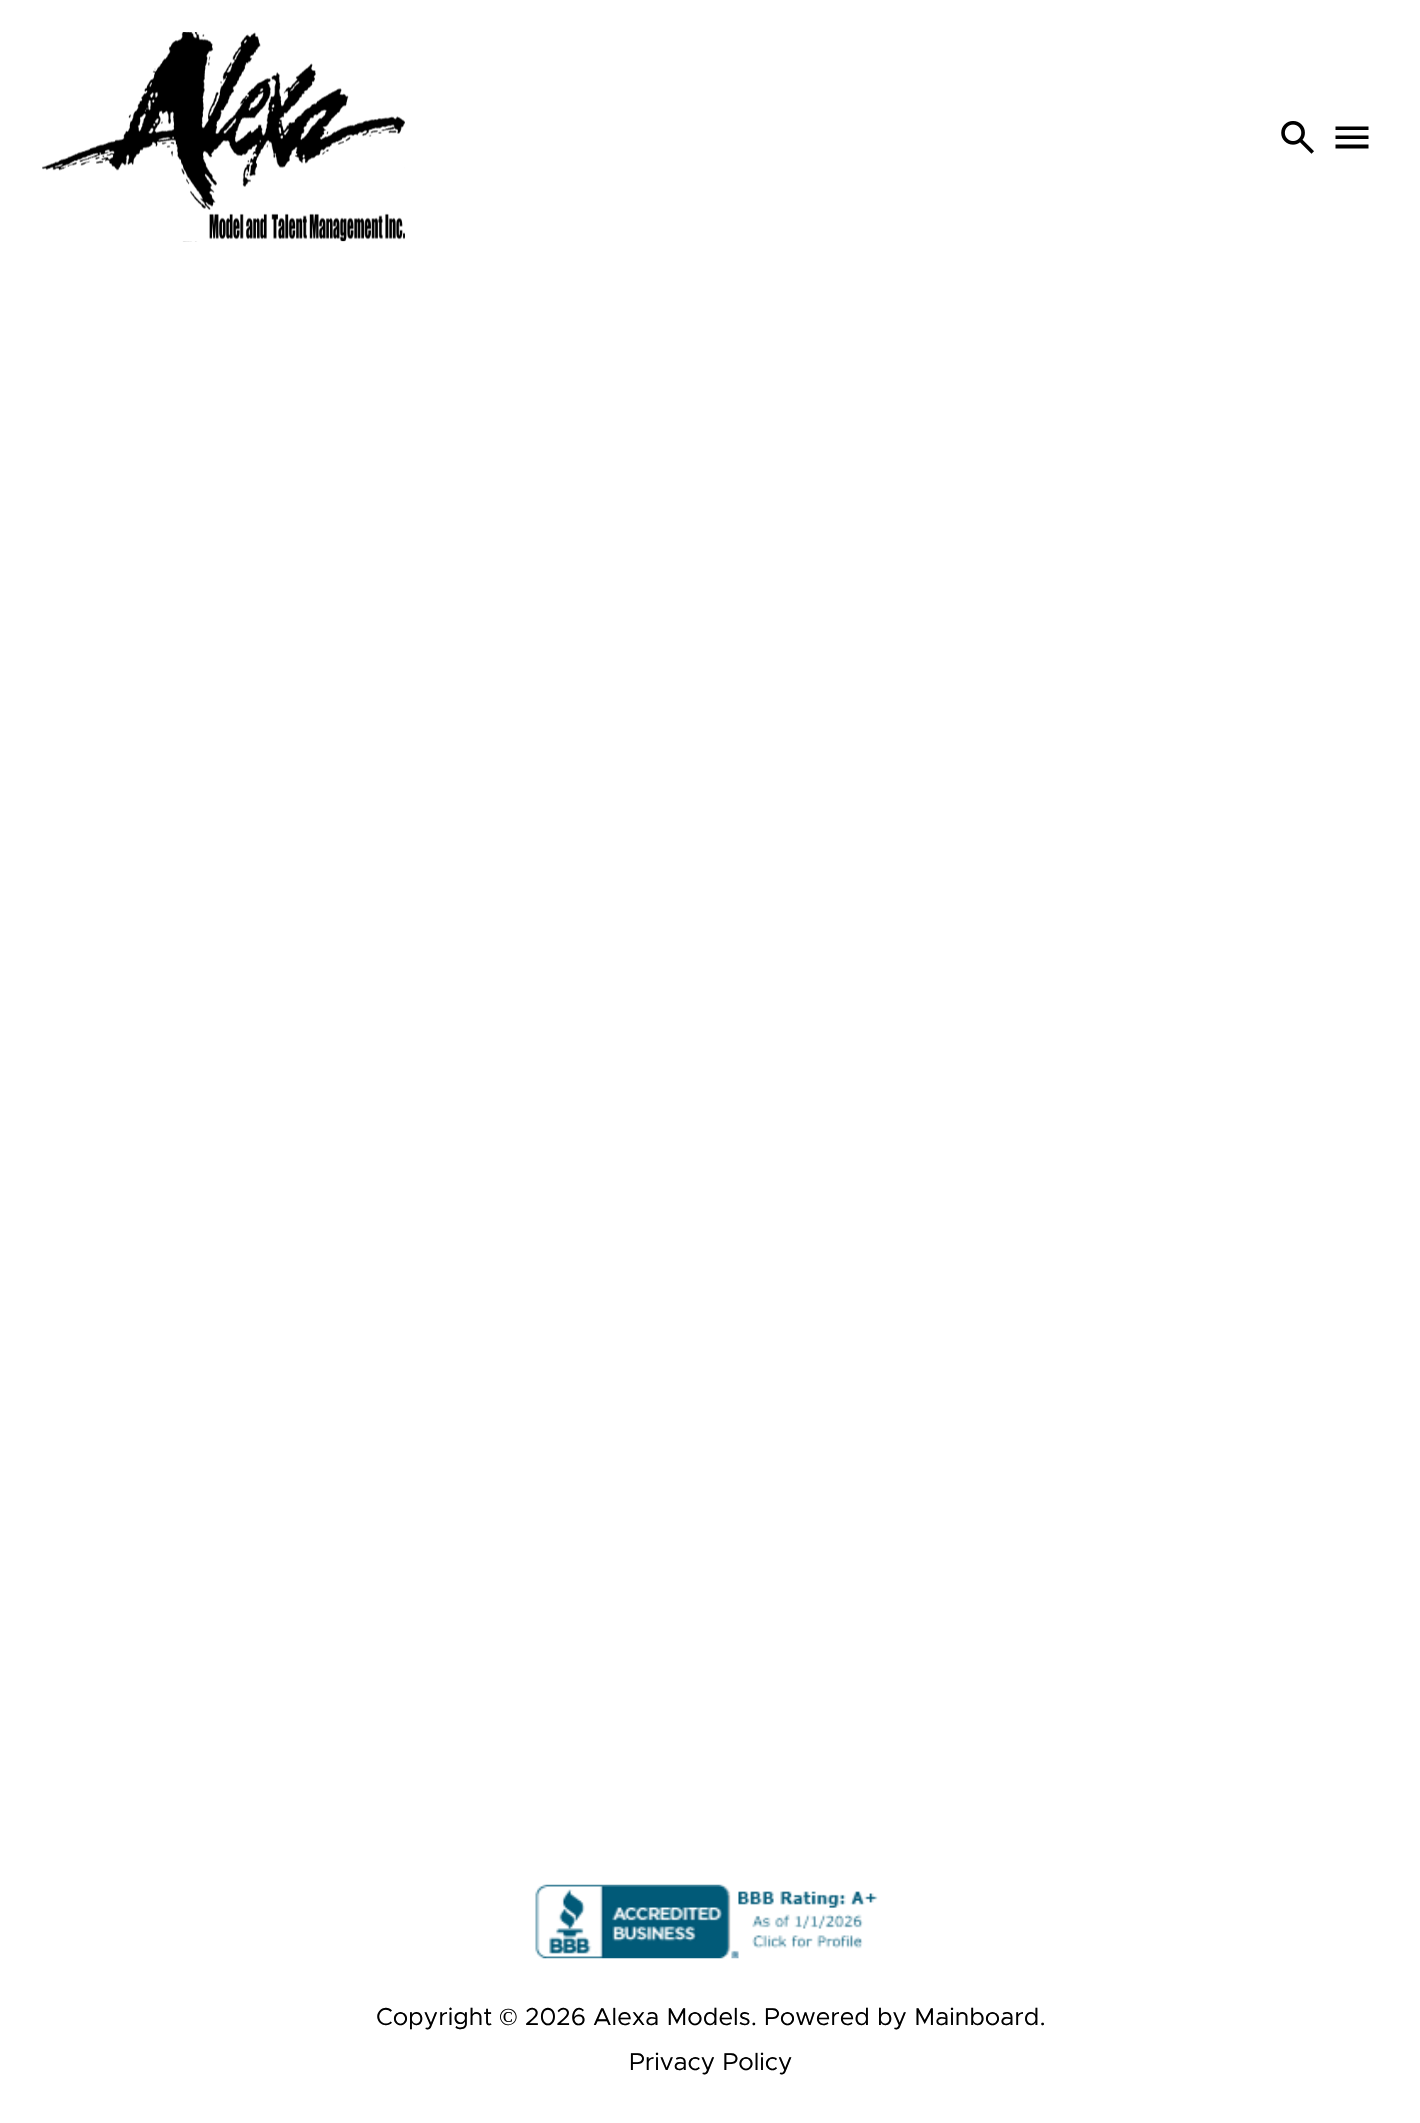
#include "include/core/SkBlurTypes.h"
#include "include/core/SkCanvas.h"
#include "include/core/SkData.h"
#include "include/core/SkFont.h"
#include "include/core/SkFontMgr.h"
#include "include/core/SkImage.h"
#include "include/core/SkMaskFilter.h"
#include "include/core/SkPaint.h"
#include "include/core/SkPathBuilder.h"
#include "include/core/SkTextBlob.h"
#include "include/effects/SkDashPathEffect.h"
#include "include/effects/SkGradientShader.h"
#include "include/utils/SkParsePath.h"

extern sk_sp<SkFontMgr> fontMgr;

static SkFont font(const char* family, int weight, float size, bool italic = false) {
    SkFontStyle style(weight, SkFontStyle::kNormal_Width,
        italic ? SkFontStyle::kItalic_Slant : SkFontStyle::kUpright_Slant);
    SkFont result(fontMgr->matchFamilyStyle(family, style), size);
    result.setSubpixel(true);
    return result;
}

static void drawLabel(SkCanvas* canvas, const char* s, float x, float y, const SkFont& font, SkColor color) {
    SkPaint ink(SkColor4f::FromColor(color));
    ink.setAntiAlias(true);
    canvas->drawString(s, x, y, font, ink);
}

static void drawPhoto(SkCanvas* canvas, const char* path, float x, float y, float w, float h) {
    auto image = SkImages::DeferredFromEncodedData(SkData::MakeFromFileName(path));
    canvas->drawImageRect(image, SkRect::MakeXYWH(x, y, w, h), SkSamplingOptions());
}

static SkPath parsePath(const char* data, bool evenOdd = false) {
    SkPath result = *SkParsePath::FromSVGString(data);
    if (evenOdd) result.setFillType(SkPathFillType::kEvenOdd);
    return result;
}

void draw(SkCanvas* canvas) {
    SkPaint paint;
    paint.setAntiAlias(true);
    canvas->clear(0xFFFFFFFF);
    drawPhoto(canvas, "assets/img1.png", 42, 32, 363, 210);
    drawPhoto(canvas, "assets/img2.png", 1281, 121, 33, 33);
    paint.setColor(0xFF000000);
    canvas->drawPath(parsePath("M1335.5 148.5V144.5H1368.5V148.5ZM1335.5 139V135.5H1368.5V139ZM1335.5 130V126.5H1368.5V130Z"), paint);
    drawPhoto(canvas, "assets/img3.png", 535, 1884, 343, 75);
    SkFont font1 = font("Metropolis", 400, 24.5f);
    drawLabel(canvas, "Copyright", 376, 2025, font1, 0xFF000000);
    SkFont font2 = font("Liberation Serif", 400, 24.5f);
    drawLabel(canvas, "©", 499, 2025, font2, 0xFF000000);
    drawLabel(canvas, "2026 Alexa Models. Powered by Mainboard.", 525, 2025, font1, 0xFF000000);
    drawLabel(canvas, "Privacy Policy", 629, 2070, font1, 0xFF000000);
}
